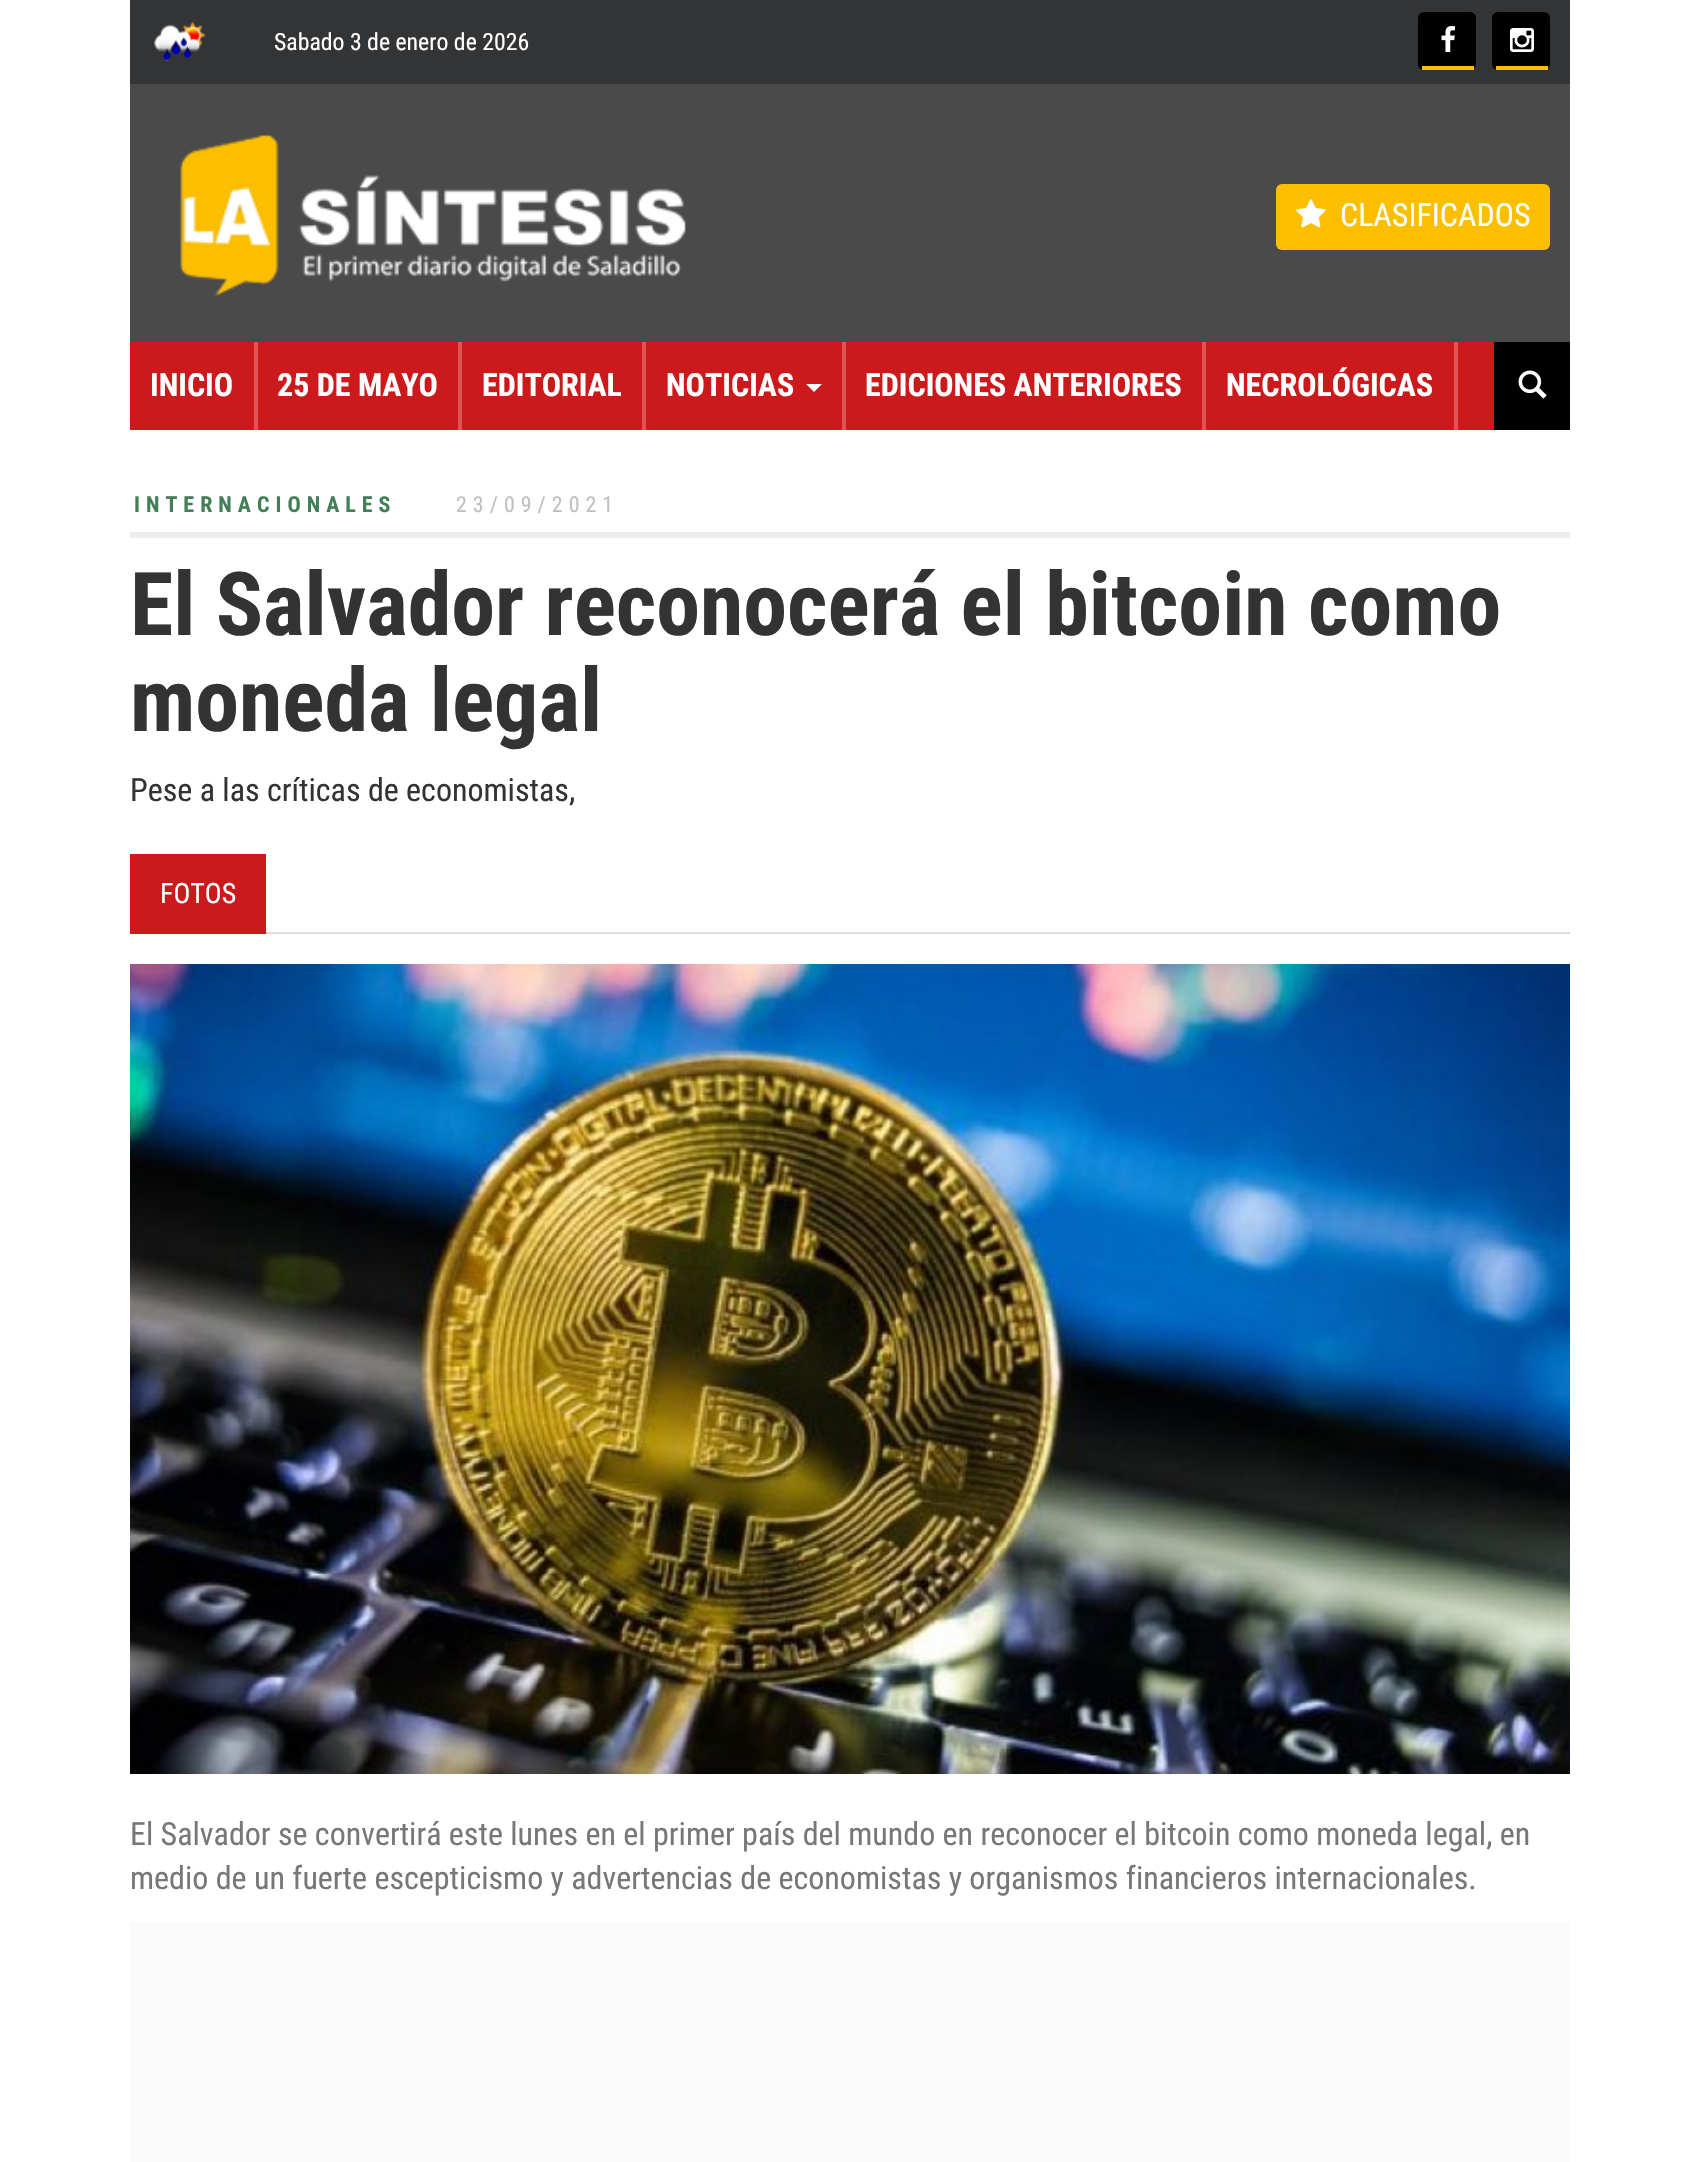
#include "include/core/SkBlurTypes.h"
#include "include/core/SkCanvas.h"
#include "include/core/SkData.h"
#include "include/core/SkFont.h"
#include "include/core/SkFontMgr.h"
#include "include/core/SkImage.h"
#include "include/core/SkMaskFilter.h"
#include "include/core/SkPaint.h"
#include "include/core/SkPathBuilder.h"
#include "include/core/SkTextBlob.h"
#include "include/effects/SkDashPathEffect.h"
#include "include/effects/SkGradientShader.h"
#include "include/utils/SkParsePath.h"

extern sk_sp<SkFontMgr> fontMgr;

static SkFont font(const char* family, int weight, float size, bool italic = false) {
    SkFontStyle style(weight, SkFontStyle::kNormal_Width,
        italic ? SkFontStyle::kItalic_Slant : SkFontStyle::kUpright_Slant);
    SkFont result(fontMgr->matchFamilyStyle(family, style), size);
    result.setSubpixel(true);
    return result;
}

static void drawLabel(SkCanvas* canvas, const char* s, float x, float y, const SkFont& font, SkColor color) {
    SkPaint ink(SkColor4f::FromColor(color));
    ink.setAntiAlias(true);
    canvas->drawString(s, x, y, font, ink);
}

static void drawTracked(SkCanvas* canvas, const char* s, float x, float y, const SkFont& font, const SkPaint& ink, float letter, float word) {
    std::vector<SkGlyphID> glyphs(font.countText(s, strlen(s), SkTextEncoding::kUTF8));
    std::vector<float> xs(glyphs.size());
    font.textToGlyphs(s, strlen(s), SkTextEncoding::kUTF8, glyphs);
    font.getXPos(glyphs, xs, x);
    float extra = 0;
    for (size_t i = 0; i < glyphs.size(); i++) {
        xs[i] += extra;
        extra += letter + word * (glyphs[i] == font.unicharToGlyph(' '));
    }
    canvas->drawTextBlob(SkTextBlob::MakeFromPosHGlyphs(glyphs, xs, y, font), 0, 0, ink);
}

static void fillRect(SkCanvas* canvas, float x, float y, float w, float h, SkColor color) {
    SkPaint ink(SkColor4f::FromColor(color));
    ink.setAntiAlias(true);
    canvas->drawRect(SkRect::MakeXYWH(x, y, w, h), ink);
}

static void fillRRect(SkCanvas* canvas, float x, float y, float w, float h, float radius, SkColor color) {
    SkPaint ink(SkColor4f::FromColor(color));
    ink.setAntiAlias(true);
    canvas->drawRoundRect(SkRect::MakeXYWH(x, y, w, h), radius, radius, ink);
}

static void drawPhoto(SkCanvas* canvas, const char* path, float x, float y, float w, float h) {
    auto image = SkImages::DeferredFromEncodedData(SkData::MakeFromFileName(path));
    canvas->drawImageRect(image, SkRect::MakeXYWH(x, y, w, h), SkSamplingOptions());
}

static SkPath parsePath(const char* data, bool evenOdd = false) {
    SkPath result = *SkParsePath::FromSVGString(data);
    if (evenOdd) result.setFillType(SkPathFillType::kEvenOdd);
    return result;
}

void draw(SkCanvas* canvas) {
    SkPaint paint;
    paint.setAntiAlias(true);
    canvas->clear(0xFFFFFFFF);
    fillRect(canvas, 130, 0, 1440, 84, 0xFF333436);
    drawPhoto(canvas, "assets/img1.png", 154, 21, 52, 41);
    SkFont font1 = font("Roboto Condensed", 400, 23.75f);
    drawLabel(canvas, "Sabado 3 de enero de 2026", 274, 50, font1, 0xFFFFFFFF);
    fillRRect(canvas, 1418, 12, 58, 58, 6, 0xFF000000);
    fillRect(canvas, 1422, 66, 52, 4, 0xFFFBBF00);
    drawPhoto(canvas, "assets/img2.png", 1441, 26, 14, 26);
    fillRRect(canvas, 1492, 12, 58, 58, 6, 0xFF000000);
    fillRect(canvas, 1496, 66, 52, 4, 0xFFFBBF00);
    drawPhoto(canvas, "assets/img3.png", 1510, 28, 24, 24);
    fillRect(canvas, 130, 84, 1440, 258, 0xFF4A4A4A);
    drawPhoto(canvas, "assets/img4.png", 180, 135, 506, 162);
    fillRRect(canvas, 1276, 184, 274, 66, 6, 0xFFFBBF00);
    drawPhoto(canvas, "assets/img5.png", 1296, 199, 30, 29);
    SkFont font2 = font("Roboto Condensed", 400, 32);
    drawLabel(canvas, "CLASIFICADOS", 1340, 226, font2, 0xFFFFFFFF);
    fillRect(canvas, 130, 342, 1364, 88, 0xFFCC191C);
    fillRect(canvas, 254, 342, 4, 88, 0xFFDE5558);
    SkFont font3 = font("Roboto Condensed", 700, 32);
    drawLabel(canvas, "INICIO", 150, 396, font3, 0xFFFFFFFF);
    fillRect(canvas, 458, 342, 4, 88, 0xFFDE5558);
    drawLabel(canvas, "25 DE MAYO", 277, 396, font3, 0xFFFFFFFF);
    fillRect(canvas, 642, 342, 4, 88, 0xFFDE5558);
    drawLabel(canvas, "EDITORIAL", 482, 396, font3, 0xFFFFFFFF);
    fillRect(canvas, 842, 342, 4, 88, 0xFFDE5558);
    drawLabel(canvas, "NOTICIAS", 666, 396, font3, 0xFFFFFFFF);
    paint.setColor(0xFFFFFFFF);
    canvas->drawPath(parsePath("M806 384H822L814 392Z"), paint);
    fillRect(canvas, 1202, 342, 4, 88, 0xFFDE5558);
    drawLabel(canvas, "EDICIONES ANTERIORES", 865, 396, font3, 0xFFFFFFFF);
    fillRect(canvas, 1454, 342, 4, 88, 0xFFDE5558);
    drawLabel(canvas, "NECROLÓGICAS", 1226, 396, font3, 0xFFFFFFFF);
    fillRect(canvas, 1494, 342, 76, 88, 0xFF000000);
    drawPhoto(canvas, "assets/img6.png", 1518, 370, 29, 29);
    fillRect(canvas, 130, 532, 1440, 6, 0xFFECECEC);
    SkFont font4 = font("Roboto Condensed", 700, 22);
    paint.setColor(0xFF437E58);
    drawTracked(canvas, "INTERNACIONALES", 134, 512, font4, paint, 6, 0);
    SkFont font5 = font("Roboto Condensed", 400, 22);
    paint.setColor(0xFFBFBFBF);
    drawTracked(canvas, "23/09/2021", 456, 512, font5, paint, 6, 0);
    SkFont font6 = font("Roboto Condensed", 700, 88);
    drawLabel(canvas, "El Salvador reconocerá el bitcoin como", 130, 635, font6, 0xFF333333);
    drawLabel(canvas, "moneda legal", 130, 731, font6, 0xFF333333);
    drawLabel(canvas, "Pese a las críticas de economistas,", 130, 801, font2, 0xFF333333);
    fillRect(canvas, 266, 932, 1304, 2, 0xFFDDDDDD);
    fillRect(canvas, 130, 854, 136, 80, 0xFFCC191C);
    SkFont font7 = font("Roboto Condensed", 400, 28);
    drawLabel(canvas, "FOTOS", 160, 903, font7, 0xFFFFFFFF);
    drawPhoto(canvas, "assets/img7.png", 130, 964, 1440, 810);
    drawLabel(canvas, "El Salvador se convertirá este lunes en el primer país del mundo en reconocer el bitcoin como moneda legal, en", 130, 1845, font2, 0xFF777777);
    drawLabel(canvas, "medio de un fuerte escepticismo y advertencias de economistas y organismos financieros internacionales.", 130, 1889, font2, 0xFF777777);
    fillRect(canvas, 130, 1922, 1440, 240, 0xFFFAFAFA);
}
